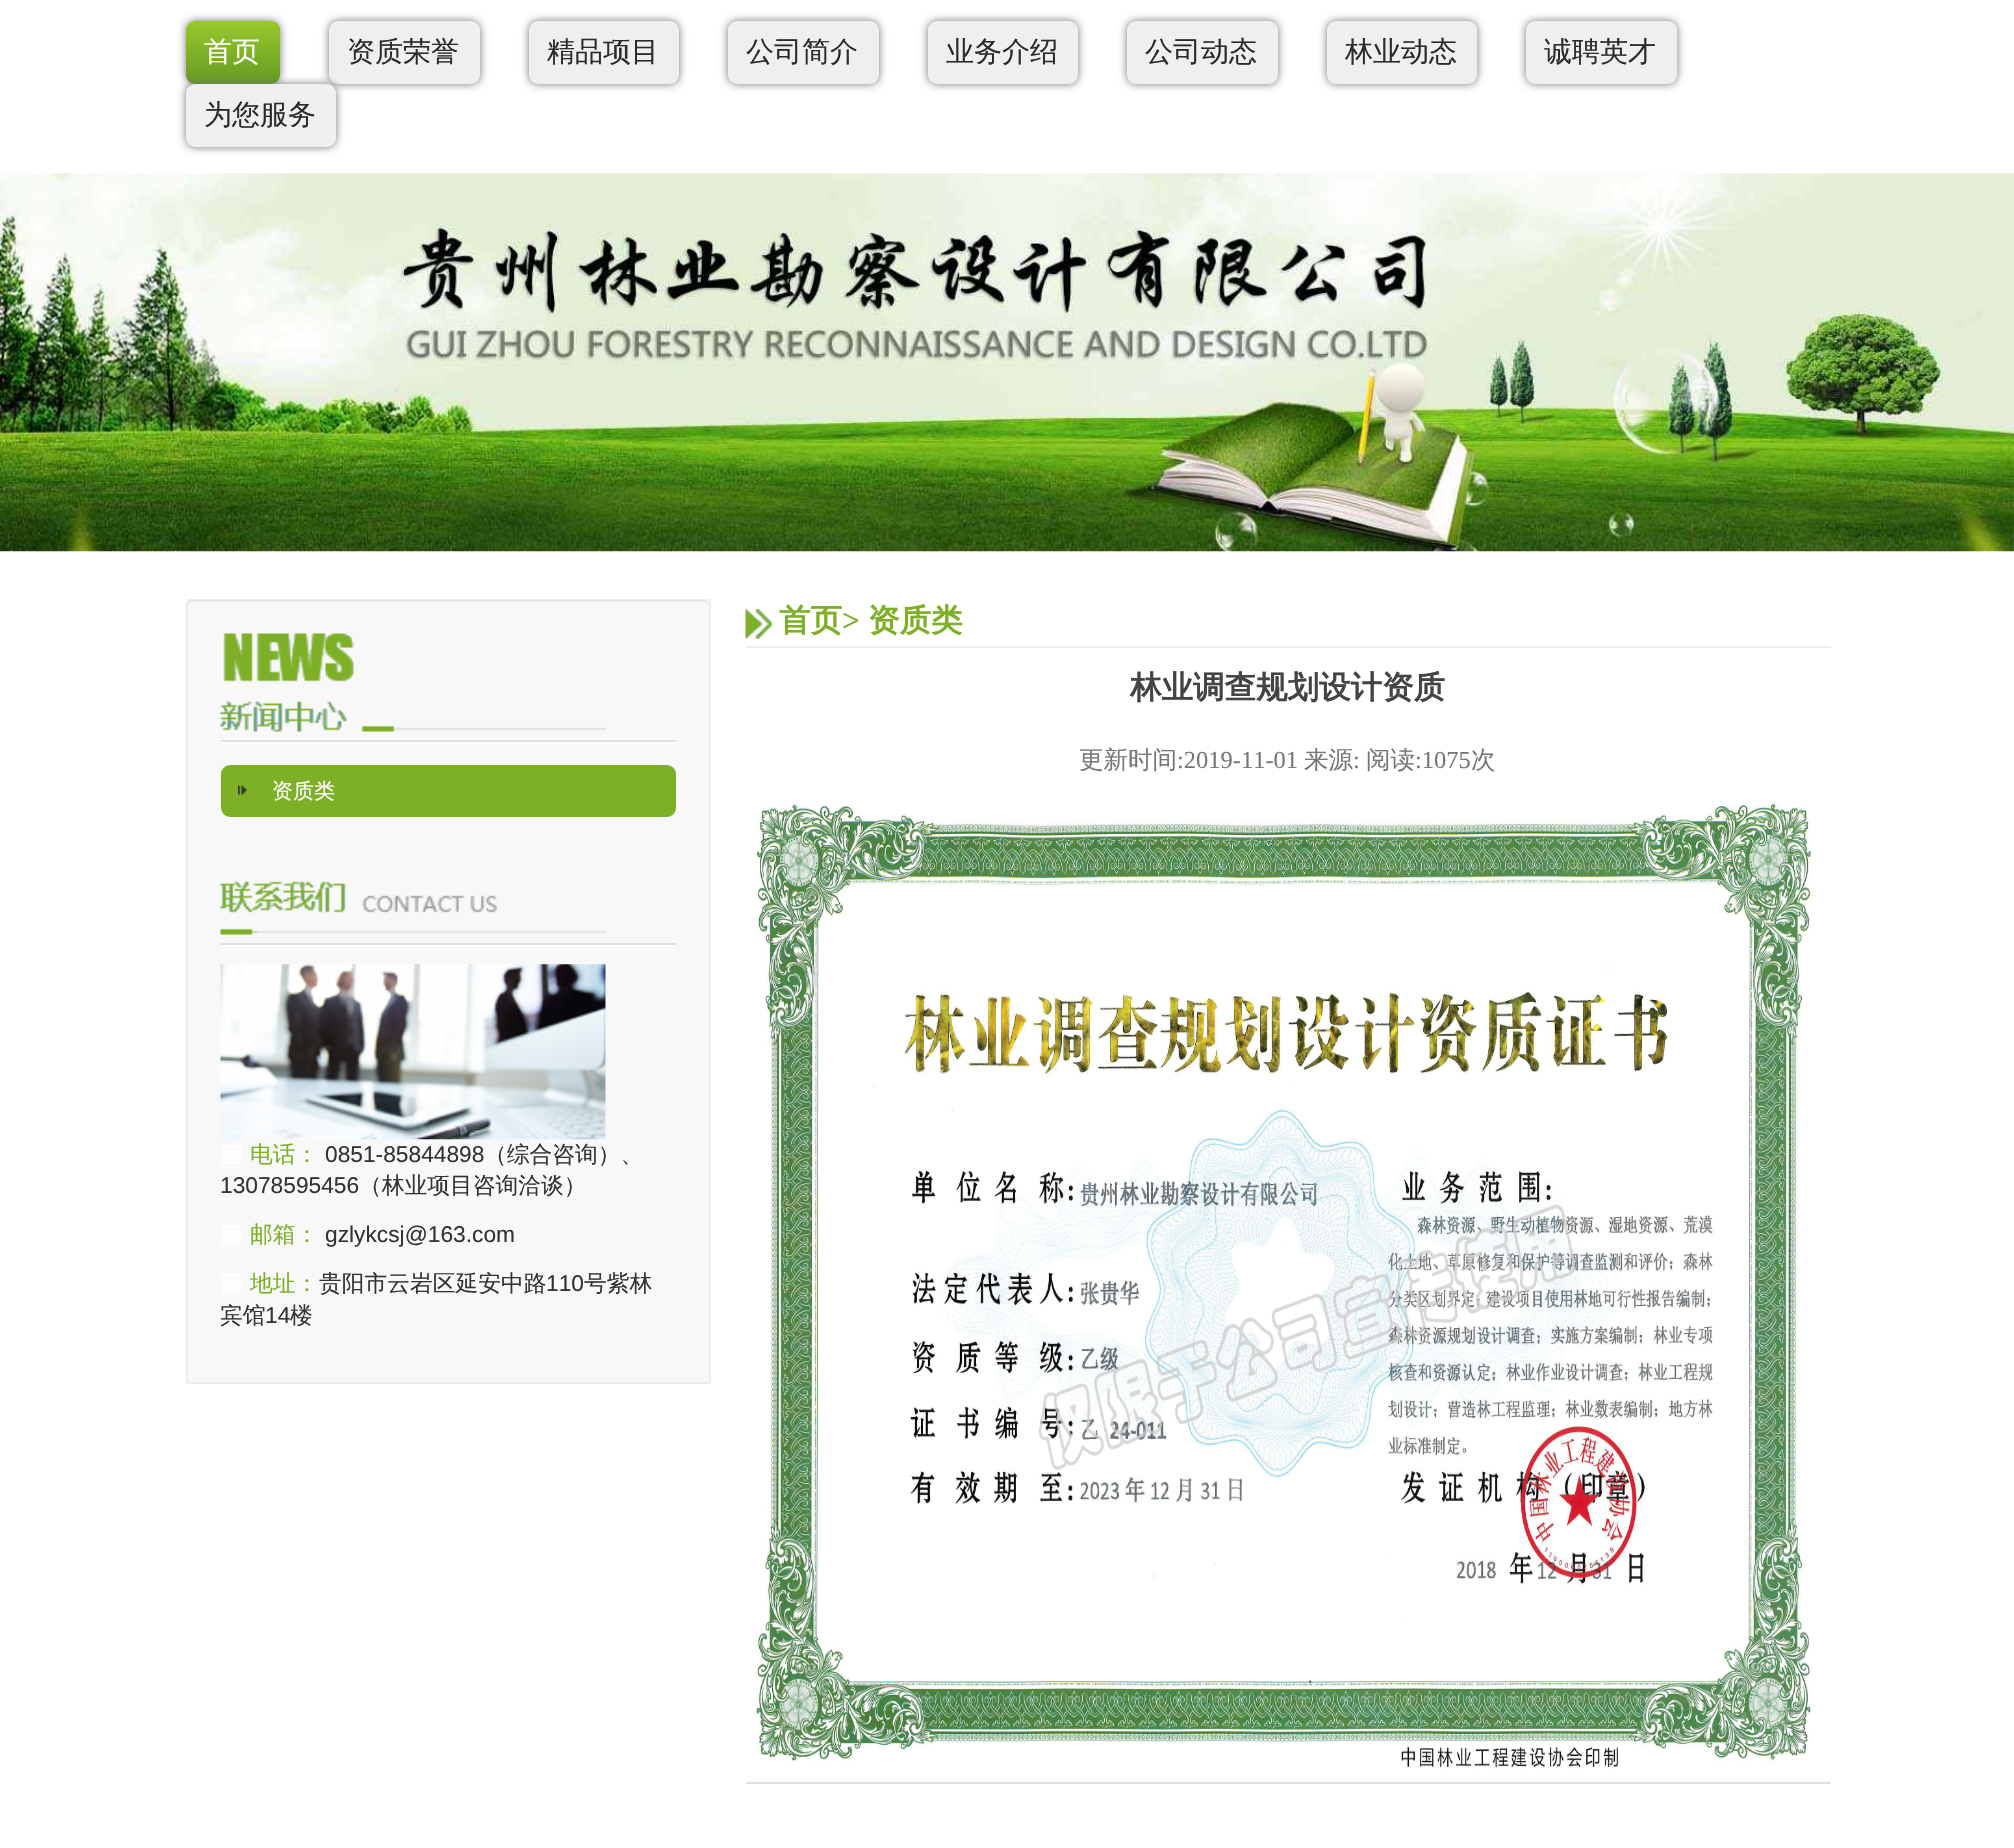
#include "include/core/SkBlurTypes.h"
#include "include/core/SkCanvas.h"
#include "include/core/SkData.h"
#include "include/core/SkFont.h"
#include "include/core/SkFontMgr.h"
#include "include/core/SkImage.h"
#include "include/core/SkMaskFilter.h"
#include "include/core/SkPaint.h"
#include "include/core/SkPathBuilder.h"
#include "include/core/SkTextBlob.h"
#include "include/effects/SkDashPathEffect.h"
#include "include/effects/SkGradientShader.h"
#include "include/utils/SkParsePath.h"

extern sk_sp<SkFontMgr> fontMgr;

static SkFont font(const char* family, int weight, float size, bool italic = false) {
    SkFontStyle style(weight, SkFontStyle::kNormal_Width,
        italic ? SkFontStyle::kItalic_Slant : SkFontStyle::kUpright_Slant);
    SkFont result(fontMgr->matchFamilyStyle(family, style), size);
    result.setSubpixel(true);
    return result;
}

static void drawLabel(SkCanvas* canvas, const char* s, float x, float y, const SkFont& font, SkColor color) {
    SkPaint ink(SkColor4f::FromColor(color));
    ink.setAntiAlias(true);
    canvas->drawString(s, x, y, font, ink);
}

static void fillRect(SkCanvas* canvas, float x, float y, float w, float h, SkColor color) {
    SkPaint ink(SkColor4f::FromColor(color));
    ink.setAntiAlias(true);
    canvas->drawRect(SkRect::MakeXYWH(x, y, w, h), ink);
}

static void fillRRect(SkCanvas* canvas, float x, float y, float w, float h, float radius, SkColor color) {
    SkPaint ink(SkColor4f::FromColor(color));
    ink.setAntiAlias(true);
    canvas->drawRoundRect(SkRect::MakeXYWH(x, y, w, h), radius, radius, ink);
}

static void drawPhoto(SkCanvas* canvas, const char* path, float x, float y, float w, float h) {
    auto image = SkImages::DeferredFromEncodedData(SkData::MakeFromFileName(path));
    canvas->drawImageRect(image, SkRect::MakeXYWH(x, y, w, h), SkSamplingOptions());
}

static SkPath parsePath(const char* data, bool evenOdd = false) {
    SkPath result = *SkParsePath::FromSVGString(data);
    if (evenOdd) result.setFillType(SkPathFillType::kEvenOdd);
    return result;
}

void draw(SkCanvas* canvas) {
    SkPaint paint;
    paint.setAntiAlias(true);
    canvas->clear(0xFFFFFFFF);
    paint.setColor(0xFF747474);
    paint.setMaskFilter(SkMaskFilter::MakeBlur(kNormal_SkBlurStyle, 4.5f));
    canvas->drawRoundRect(SkRect::MakeXYWH(186, 21, 94, 63), 9, 9, paint);
    paint.setMaskFilter(nullptr);
    {
        const SkColor colors[] = {0xFF9AC92C, 0xFF659A22};
        const float stops[] = {0, 1};
        const SkPoint ends[] = {{233, 21}, {233, 84}};
        paint.setShader(SkGradientShader::MakeLinear(ends, colors, stops, 2, SkTileMode::kClamp));
        paint.setAlpha(255);
    }
    canvas->drawRoundRect(SkRect::MakeXYWH(186, 21, 94, 63), 9, 9, paint);
    SkFont font1 = font("WenQuanYi Zen Hei", 500, 28);
    drawLabel(canvas, "首页", 204, 61, font1, 0xFFFFFFFF);
    paint.setShader(nullptr);
    paint.setColor(0xFF747474);
    paint.setMaskFilter(SkMaskFilter::MakeBlur(kNormal_SkBlurStyle, 4.5f));
    canvas->drawRoundRect(SkRect::MakeXYWH(329, 21, 151, 63), 9, 9, paint);
    paint.setMaskFilter(nullptr);
    fillRRect(canvas, 329, 21, 151, 63, 9, 0xFFEFEFEF);
    drawLabel(canvas, "资质荣誉", 347, 61, font1, 0xFF2B2B2B);
    paint.setMaskFilter(SkMaskFilter::MakeBlur(kNormal_SkBlurStyle, 4.5f));
    canvas->drawRoundRect(SkRect::MakeXYWH(529, 21, 150, 63), 9, 9, paint);
    paint.setMaskFilter(nullptr);
    fillRRect(canvas, 529, 21, 150, 63, 9, 0xFFEFEFEF);
    drawLabel(canvas, "精品项目", 547, 61, font1, 0xFF2B2B2B);
    paint.setMaskFilter(SkMaskFilter::MakeBlur(kNormal_SkBlurStyle, 4.5f));
    canvas->drawRoundRect(SkRect::MakeXYWH(728, 21, 151, 63), 9, 9, paint);
    paint.setMaskFilter(nullptr);
    fillRRect(canvas, 728, 21, 151, 63, 9, 0xFFEFEFEF);
    drawLabel(canvas, "公司简介", 746, 61, font1, 0xFF2B2B2B);
    paint.setMaskFilter(SkMaskFilter::MakeBlur(kNormal_SkBlurStyle, 4.5f));
    canvas->drawRoundRect(SkRect::MakeXYWH(928, 21, 150, 63), 9, 9, paint);
    paint.setMaskFilter(nullptr);
    fillRRect(canvas, 928, 21, 150, 63, 9, 0xFFEFEFEF);
    drawLabel(canvas, "业务介绍", 946, 61, font1, 0xFF2B2B2B);
    paint.setMaskFilter(SkMaskFilter::MakeBlur(kNormal_SkBlurStyle, 4.5f));
    canvas->drawRoundRect(SkRect::MakeXYWH(1127, 21, 151, 63), 9, 9, paint);
    paint.setMaskFilter(nullptr);
    fillRRect(canvas, 1127, 21, 151, 63, 9, 0xFFEFEFEF);
    drawLabel(canvas, "公司动态", 1145, 61, font1, 0xFF2B2B2B);
    paint.setMaskFilter(SkMaskFilter::MakeBlur(kNormal_SkBlurStyle, 4.5f));
    canvas->drawRoundRect(SkRect::MakeXYWH(1327, 21, 150, 63), 9, 9, paint);
    paint.setMaskFilter(nullptr);
    fillRRect(canvas, 1327, 21, 150, 63, 9, 0xFFEFEFEF);
    drawLabel(canvas, "林业动态", 1345, 61, font1, 0xFF2B2B2B);
    paint.setMaskFilter(SkMaskFilter::MakeBlur(kNormal_SkBlurStyle, 4.5f));
    canvas->drawRoundRect(SkRect::MakeXYWH(1526, 21, 151, 63), 9, 9, paint);
    paint.setMaskFilter(nullptr);
    fillRRect(canvas, 1526, 21, 151, 63, 9, 0xFFEFEFEF);
    drawLabel(canvas, "诚聘英才", 1544, 61, font1, 0xFF2B2B2B);
    paint.setMaskFilter(SkMaskFilter::MakeBlur(kNormal_SkBlurStyle, 4.5f));
    canvas->drawRoundRect(SkRect::MakeXYWH(186, 84, 150, 63), 9, 9, paint);
    paint.setMaskFilter(nullptr);
    fillRRect(canvas, 186, 84, 150, 63, 9, 0xFFEFEFEF);
    drawLabel(canvas, "为您服务", 204, 124, font1, 0xFF2B2B2B);
    drawPhoto(canvas, "assets/img1.png", 0, 173, 2014, 379);
    drawPhoto(canvas, "assets/img2.png", 745, 609, 27, 30);
    SkFont font2 = font("WenQuanYi Zen Hei", 700, 31.5f);
    drawLabel(canvas, "首页", 779, 631, font2, 0xFF7DAF27);
    SkFont font3 = font("Liberation Serif", 700, 31.5f);
    drawLabel(canvas, ">", 842, 631, font3, 0xFF7DAF27);
    drawLabel(canvas, "资质类", 868, 631, font2, 0xFF7DAF27);
    fillRect(canvas, 746, 646, 1085, 2, 0xFFEEEEEE);
    fillRect(canvas, 746, 1782, 1085, 2, 0xFFDFDFDF);
    drawLabel(canvas, "林业调查规划设计资质", 1130, 698, font2, 0xFF444444);
    SkFont font4 = font("WenQuanYi Zen Hei", 500, 24.5f);
    drawLabel(canvas, "更新时间", 1079, 768, font4, 0xFF777777);
    SkFont font5 = font("Liberation Serif", 400, 24.5f);
    drawLabel(canvas, ":2019-11-01", 1177, 768, font5, 0xFF777777);
    drawLabel(canvas, "来源", 1304, 768, font4, 0xFF777777);
    drawLabel(canvas, ":", 1353, 768, font5, 0xFF777777);
    drawLabel(canvas, "阅读", 1366, 768, font4, 0xFF777777);
    drawLabel(canvas, ":1075", 1415, 768, font5, 0xFF777777);
    drawLabel(canvas, "次", 1471, 768, font4, 0xFF777777);
    drawPhoto(canvas, "assets/img3.png", 756, 799, 1056, 970);
    fillRRect(canvas, 186, 599, 525, 785, 7, 0xFFF8F8F8);
    paint.setColor(0xFFECECEC);
    canvas->drawPath(parsePath("M192 602H704C706 602 709 604 709 607V605C709 602 707 600 704 600H192C189 600 187 602 187 605V607C187 604 190 602 192 602Z"), paint);
    paint.setStroke(true);
    paint.setStrokeWidth(2);
    paint.setColor(0x0D000000);
    canvas->drawRect(SkRect::MakeXYWH(187, 600, 523, 783), paint);
    drawPhoto(canvas, "assets/img4.png", 220, 633, 386, 99);
    fillRect(canvas, 221, 740, 455, 2, 0xFFDFDFDF);
    fillRect(canvas, 221, 742, 455, 2, 0xFFFFFFFF);
    fillRRect(canvas, 221, 765, 455, 52, 9, 0xFF7DAF27);
    drawPhoto(canvas, "assets/img5.png", 238, 785, 9, 10);
    SkFont font6 = font("WenQuanYi Zen Hei", 500, 21);
    drawLabel(canvas, "资质类", 272, 798, font6, 0xFFFFFFFF);
    drawPhoto(canvas, "assets/img6.png", 220, 881, 386, 54);
    fillRect(canvas, 221, 943, 455, 2, 0xFFDFDFDF);
    fillRect(canvas, 221, 945, 455, 2, 0xFFFFFFFF);
    drawPhoto(canvas, "assets/img7.png", 220, 964, 386, 176);
    drawPhoto(canvas, "assets/img8.png", 222, 1143, 19, 21);
    SkFont font7 = font("WenQuanYi Zen Hei", 500, 22.75f);
    drawLabel(canvas, "电话：", 250, 1162, font7, 0xFF7DAF27);
    SkFont font8 = font("Liberation Sans", 400, 22.75f);
    drawLabel(canvas, "0851-85844898", 325, 1162, font8, 0xFF333333);
    drawLabel(canvas, "（综合咨询）、", 484, 1162, font7, 0xFF333333);
    drawLabel(canvas, "13078595456", 220, 1193, font8, 0xFF333333);
    drawLabel(canvas, "（林业项目咨询洽谈）", 359, 1193, font7, 0xFF333333);
    drawPhoto(canvas, "assets/img9.png", 222, 1224, 19, 20);
    drawLabel(canvas, "邮箱：", 250, 1242, font7, 0xFF7DAF27);
    drawLabel(canvas, "gzlykcsj@163.com", 325, 1242, font8, 0xFF333333);
    drawPhoto(canvas, "assets/img9.png", 222, 1273, 19, 20);
    drawLabel(canvas, "地址：", 250, 1291, font7, 0xFF7DAF27);
    drawLabel(canvas, "贵阳市云岩区延安中路", 319, 1291, font7, 0xFF333333);
    drawLabel(canvas, "110", 546, 1291, font8, 0xFF333333);
    drawLabel(canvas, "号紫林", 584, 1291, font7, 0xFF333333);
    drawLabel(canvas, "宾馆", 220, 1323, font7, 0xFF333333);
    drawLabel(canvas, "14", 265, 1323, font8, 0xFF333333);
    drawLabel(canvas, "楼", 290, 1323, font7, 0xFF333333);
}
